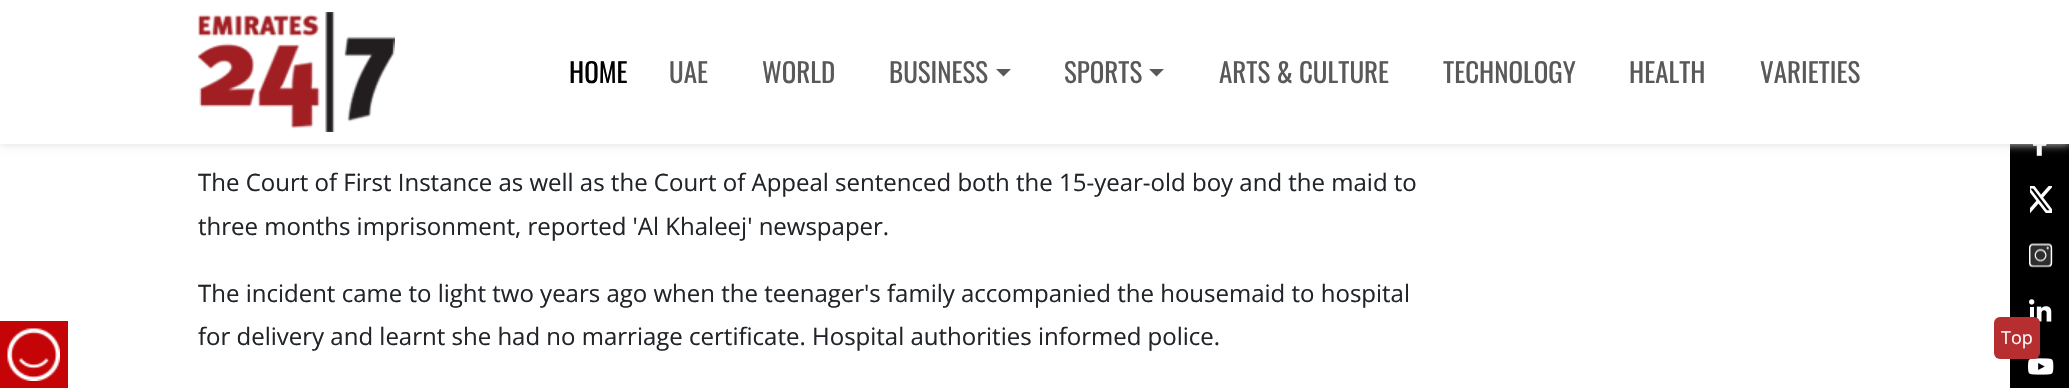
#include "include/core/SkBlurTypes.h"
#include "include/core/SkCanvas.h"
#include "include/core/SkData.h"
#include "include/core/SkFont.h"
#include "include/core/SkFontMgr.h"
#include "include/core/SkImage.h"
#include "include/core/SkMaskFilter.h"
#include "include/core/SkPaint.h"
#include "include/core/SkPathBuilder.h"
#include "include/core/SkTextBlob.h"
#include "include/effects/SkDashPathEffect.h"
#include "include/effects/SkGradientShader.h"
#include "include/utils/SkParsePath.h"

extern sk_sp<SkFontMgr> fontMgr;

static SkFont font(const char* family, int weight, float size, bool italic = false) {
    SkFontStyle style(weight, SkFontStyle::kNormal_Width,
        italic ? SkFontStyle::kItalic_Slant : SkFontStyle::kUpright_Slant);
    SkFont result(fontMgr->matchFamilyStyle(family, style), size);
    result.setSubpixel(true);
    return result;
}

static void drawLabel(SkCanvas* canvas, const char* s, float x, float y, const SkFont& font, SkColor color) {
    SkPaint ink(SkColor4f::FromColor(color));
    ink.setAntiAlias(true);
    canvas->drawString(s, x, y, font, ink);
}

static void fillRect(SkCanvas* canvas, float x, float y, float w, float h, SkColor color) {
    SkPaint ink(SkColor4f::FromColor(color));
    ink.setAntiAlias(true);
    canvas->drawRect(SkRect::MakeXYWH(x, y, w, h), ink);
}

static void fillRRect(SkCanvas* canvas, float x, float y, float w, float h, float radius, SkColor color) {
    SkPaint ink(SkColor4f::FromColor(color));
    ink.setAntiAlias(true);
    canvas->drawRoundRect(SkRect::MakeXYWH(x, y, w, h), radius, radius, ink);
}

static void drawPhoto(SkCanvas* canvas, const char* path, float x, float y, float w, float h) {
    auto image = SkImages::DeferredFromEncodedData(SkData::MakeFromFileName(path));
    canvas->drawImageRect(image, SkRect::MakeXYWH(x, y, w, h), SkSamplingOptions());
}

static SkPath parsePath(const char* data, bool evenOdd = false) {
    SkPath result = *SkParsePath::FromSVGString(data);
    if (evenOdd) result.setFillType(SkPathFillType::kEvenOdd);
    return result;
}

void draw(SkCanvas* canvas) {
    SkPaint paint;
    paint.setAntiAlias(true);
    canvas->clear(0xFFFFFFFF);
    fillRect(canvas, 2010, 144, 59, 244, 0xFF000000);
    drawPhoto(canvas, "assets/img3.png", 2033, 144, 14, 12);
    paint.setColor(0xFFDDDDDD);
    paint.setMaskFilter(SkMaskFilter::MakeBlur(kNormal_SkBlurStyle, 4.5f));
    canvas->drawRect(SkRect::MakeXYWH(0, 0, 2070, 144), paint);
    paint.setMaskFilter(nullptr);
    fillRect(canvas, 0, 0, 2069, 144, 0xFFFFFFFF);
    drawPhoto(canvas, "assets/img1.png", 198, 12, 197, 120);
    SkFont font1 = font("Oswald", 400, 27);
    drawLabel(canvas, "HOME", 569, 83, font1, 0xFF000000);
    drawLabel(canvas, "UAE", 669, 83, font1, 0xFF595959);
    drawLabel(canvas, "WORLD", 762, 83, font1, 0xFF595959);
    drawLabel(canvas, "BUSINESS", 889, 83, font1, 0xFF595959);
    paint.setColor(0xFF595959);
    canvas->drawPath(parsePath("M996 69H1011L1003.5 76.5Z"), paint);
    drawLabel(canvas, "SPORTS", 1064, 83, font1, 0xFF595959);
    canvas->drawPath(parsePath("M1149 69H1164L1156.5 76.5Z"), paint);
    drawLabel(canvas, "ARTS & CULTURE", 1219, 83, font1, 0xFF595959);
    drawLabel(canvas, "TECHNOLOGY", 1443, 83, font1, 0xFF595959);
    drawLabel(canvas, "HEALTH", 1629, 83, font1, 0xFF595959);
    drawLabel(canvas, "VARIETIES", 1760, 83, font1, 0xFF595959);
    fillRect(canvas, 0, 321, 68, 67, 0xFFC50408);
    drawPhoto(canvas, "assets/img2.png", 7, 328, 53, 53);
    SkFont font2 = font("Open Sans", 400, 24);
    drawLabel(canvas, "The Court of First Instance as well as the Court of Appeal sentenced both the 15-year-old boy and the maid to", 198, 191, font2, 0xFF212529);
    drawLabel(canvas, "three months imprisonment, reported 'Al Khaleej' newspaper.", 198, 235, font2, 0xFF212529);
    drawLabel(canvas, "The incident came to light two years ago when the teenager's family accompanied the housemaid to hospital", 198, 302, font2, 0xFF212529);
    drawLabel(canvas, "for delivery and learnt she had no marriage certificate. Hospital authorities informed police.", 198, 345, font2, 0xFF212529);
    drawPhoto(canvas, "assets/img4.png", 2030, 186, 22, 27);
    drawPhoto(canvas, "assets/img5.png", 2029, 243, 24, 25);
    drawPhoto(canvas, "assets/img6.png", 2029, 299, 23, 23);
    drawPhoto(canvas, "assets/img7.png", 2028, 358, 26, 17);
    fillRRect(canvas, 1994, 317, 46, 42, 6, 0xFFB62E30);
    SkFont font3 = font("Open Sans", 400, 18);
    drawLabel(canvas, "Top", 2001, 344, font3, 0xFFFFFFFF);
}
